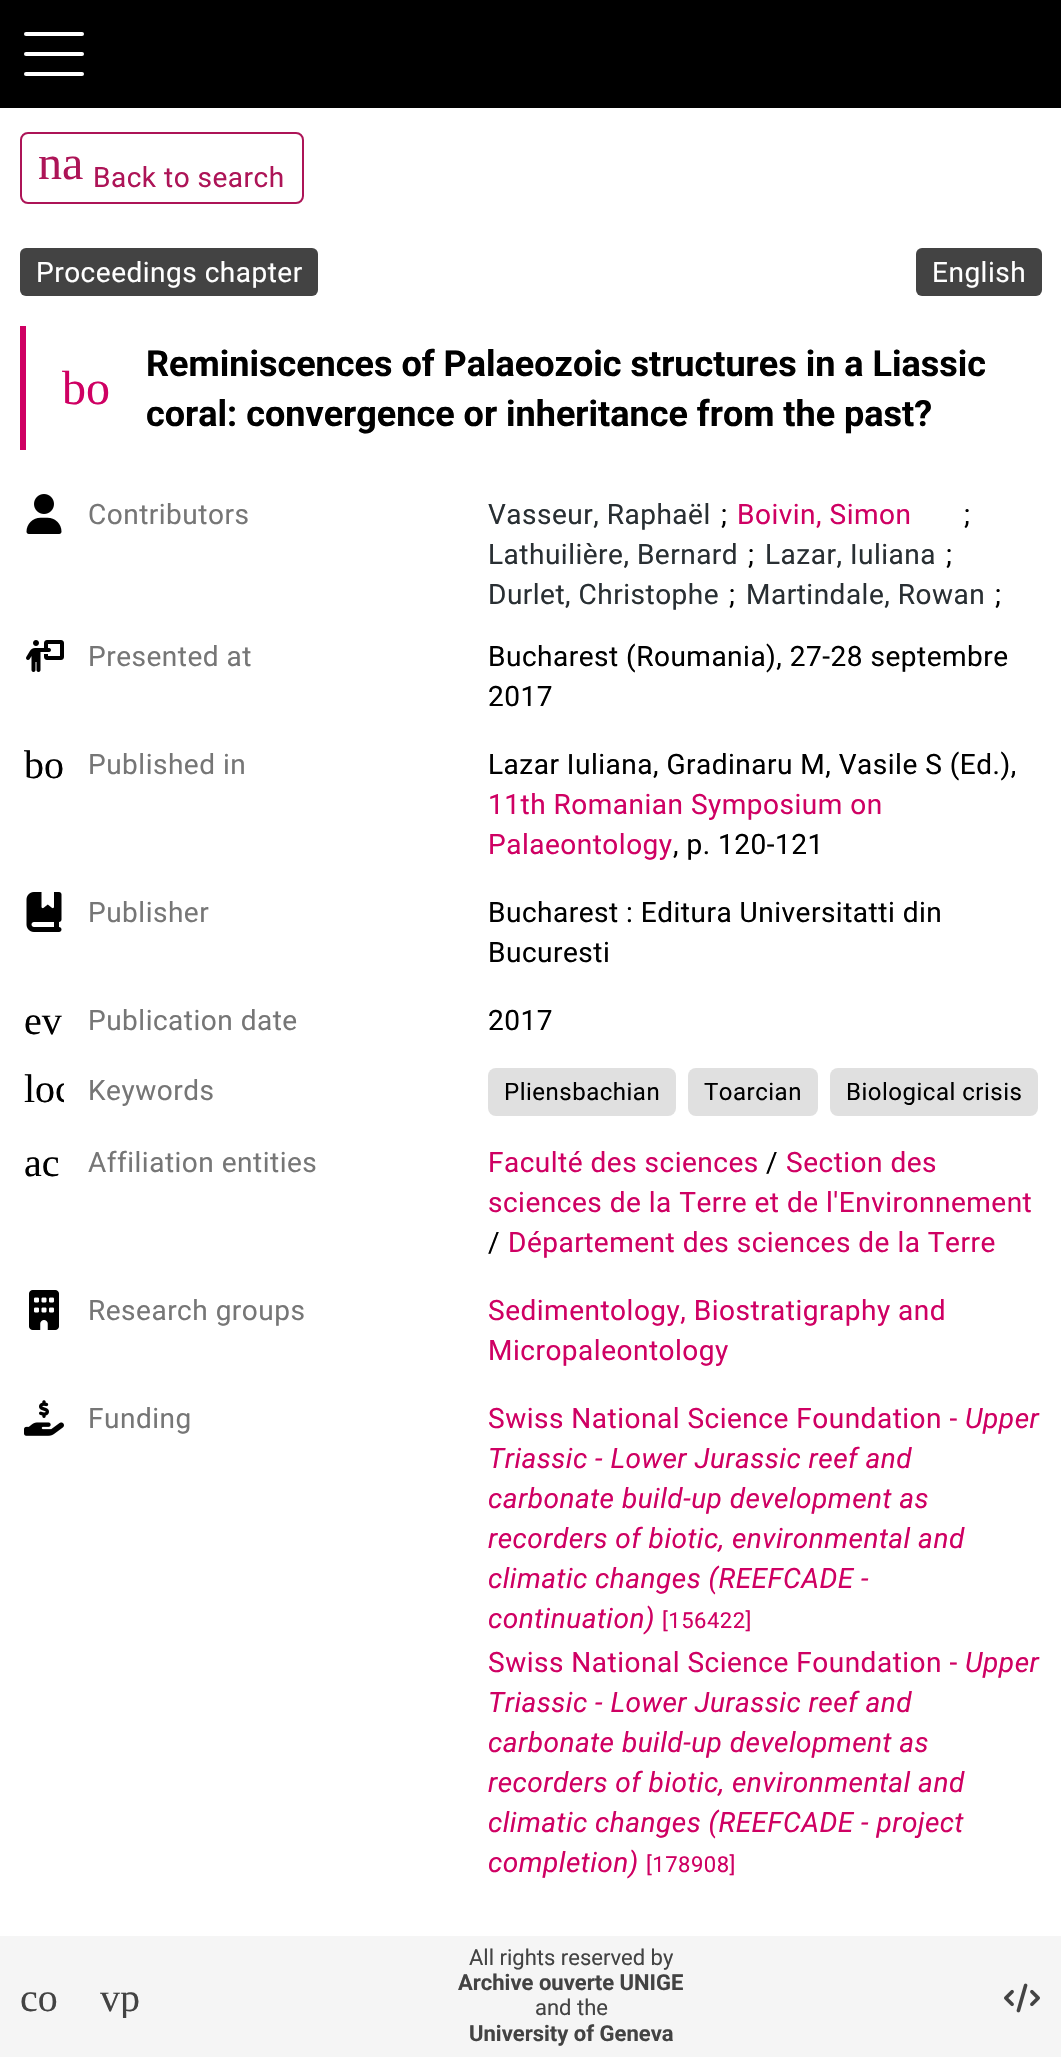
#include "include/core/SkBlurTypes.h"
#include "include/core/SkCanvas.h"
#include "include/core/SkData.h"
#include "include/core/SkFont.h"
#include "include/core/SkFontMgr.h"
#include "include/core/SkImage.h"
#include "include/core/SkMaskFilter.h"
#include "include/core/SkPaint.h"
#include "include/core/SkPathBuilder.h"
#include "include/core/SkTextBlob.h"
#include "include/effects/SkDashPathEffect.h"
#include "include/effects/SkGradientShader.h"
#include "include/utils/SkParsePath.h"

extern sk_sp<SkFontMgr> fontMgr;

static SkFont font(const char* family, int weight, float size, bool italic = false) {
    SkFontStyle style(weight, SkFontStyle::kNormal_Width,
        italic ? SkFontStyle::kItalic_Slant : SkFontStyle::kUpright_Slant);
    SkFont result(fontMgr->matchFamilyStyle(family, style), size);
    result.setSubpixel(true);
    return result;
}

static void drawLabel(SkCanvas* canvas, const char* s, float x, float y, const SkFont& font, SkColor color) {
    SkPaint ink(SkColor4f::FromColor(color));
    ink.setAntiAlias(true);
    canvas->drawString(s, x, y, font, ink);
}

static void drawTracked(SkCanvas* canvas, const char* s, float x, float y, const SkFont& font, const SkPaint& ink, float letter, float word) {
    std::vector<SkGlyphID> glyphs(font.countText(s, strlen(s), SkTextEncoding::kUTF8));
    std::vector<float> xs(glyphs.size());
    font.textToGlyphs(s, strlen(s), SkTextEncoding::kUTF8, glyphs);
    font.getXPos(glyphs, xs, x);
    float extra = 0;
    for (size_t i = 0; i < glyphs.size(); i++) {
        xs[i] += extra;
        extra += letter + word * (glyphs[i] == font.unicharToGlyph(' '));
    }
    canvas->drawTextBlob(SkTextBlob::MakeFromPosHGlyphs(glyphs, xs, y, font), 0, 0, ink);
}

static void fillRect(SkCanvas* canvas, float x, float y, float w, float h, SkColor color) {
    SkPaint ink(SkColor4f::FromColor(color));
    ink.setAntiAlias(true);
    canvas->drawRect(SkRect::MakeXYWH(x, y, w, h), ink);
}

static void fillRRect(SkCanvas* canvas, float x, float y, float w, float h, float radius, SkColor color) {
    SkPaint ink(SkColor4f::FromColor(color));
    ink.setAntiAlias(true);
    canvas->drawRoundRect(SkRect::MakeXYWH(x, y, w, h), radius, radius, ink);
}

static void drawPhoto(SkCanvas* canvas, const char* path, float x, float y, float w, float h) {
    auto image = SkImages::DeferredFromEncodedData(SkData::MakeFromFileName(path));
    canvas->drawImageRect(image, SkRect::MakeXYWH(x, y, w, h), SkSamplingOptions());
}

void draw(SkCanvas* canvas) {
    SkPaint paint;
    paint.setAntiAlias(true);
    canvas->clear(0xFFFFFFFF);
    fillRect(canvas, 0, 0, 1061, 108, 0xFF000000);
    fillRRect(canvas, 24, 32, 60, 4, 2, 0xFFFFFFFF);
    fillRRect(canvas, 24, 52, 60, 4, 2, 0xFFFFFFFF);
    fillRRect(canvas, 24, 72, 60, 4, 2, 0xFFFFFFFF);
    paint.setStroke(true);
    paint.setStrokeWidth(2);
    paint.setColor(0xFFAD1457);
    canvas->drawRoundRect(SkRect::MakeXYWH(21, 133, 282, 70), 7, 7, paint);
    SkFont font1 = font("Liberation Serif", 400, 48);
    drawLabel(canvas, "na", 38, 179, font1, 0xFFAD1457);
    SkFont font2 = font("Roboto", 400, 28);
    paint.setStroke(false);
    drawTracked(canvas, "Back to search", 93, 187, font2, paint, 0.5f, 0);
    fillRRect(canvas, 20, 248, 298, 48, 6, 0xFF434343);
    paint.setColor(0xFFFFFFFF);
    drawTracked(canvas, "Proceedings chapter", 36, 282, font2, paint, 0.5f, 0);
    fillRRect(canvas, 916, 248, 126, 48, 6, 0xFF434343);
    drawTracked(canvas, "English", 932, 282, font2, paint, 0.5f, 0);
    fillRect(canvas, 20, 326, 6, 124, 0xFFCF0063);
    drawLabel(canvas, "bo", 62, 404, font1, 0xFFCF0063);
    SkFont font3 = font("Roboto", 700, 36);
    drawLabel(canvas, "Reminiscences of Palaeozoic structures in a Liassic", 146, 376, font3, 0xFF000000);
    drawLabel(canvas, "coral: convergence or inheritance from the past?", 146, 426, font3, 0xFF000000);
    drawPhoto(canvas, "assets/img1.png", 26, 494, 36, 40);
    paint.setColor(0xFF767676);
    drawTracked(canvas, "Contributors", 88, 524, font2, paint, 0.5f, 0);
    paint.setColor(0xFF292F33);
    drawTracked(canvas, "Vasseur, Raphaël", 488, 524, font2, paint, 0.5f, 0);
    paint.setColor(0xFF000000);
    drawTracked(canvas, ";", 721, 524, font2, paint, 0.5f, 0);
    paint.setColor(0xFFCF0063);
    drawTracked(canvas, "Boivin, Simon", 737, 524, font2, paint, 0.5f, 0);
    paint.setColor(0xFF000000);
    drawTracked(canvas, ";", 964, 524, font2, paint, 0.5f, 0);
    paint.setColor(0xFF292F33);
    drawTracked(canvas, "Lathuilière, Bernard", 488, 564, font2, paint, 0.5f, 0);
    paint.setColor(0xFF000000);
    drawTracked(canvas, ";", 748, 564, font2, paint, 0.5f, 0);
    paint.setColor(0xFF292F33);
    drawTracked(canvas, "Lazar, Iuliana", 765, 564, font2, paint, 0.5f, 0);
    paint.setColor(0xFF000000);
    drawTracked(canvas, ";", 946, 564, font2, paint, 0.5f, 0);
    paint.setColor(0xFF292F33);
    drawTracked(canvas, "Durlet, Christophe", 488, 604, font2, paint, 0.5f, 0);
    paint.setColor(0xFF000000);
    drawTracked(canvas, ";", 729, 604, font2, paint, 0.5f, 0);
    paint.setColor(0xFF292F33);
    drawTracked(canvas, "Martindale, Rowan", 746, 604, font2, paint, 0.5f, 0);
    paint.setColor(0xFF000000);
    drawTracked(canvas, ";", 995, 604, font2, paint, 0.5f, 0);
    drawPhoto(canvas, "assets/img2.png", 26, 640, 38, 32);
    paint.setColor(0xFF767676);
    drawTracked(canvas, "Presented at", 88, 666, font2, paint, 0.5f, 0);
    paint.setColor(0xFF000000);
    drawTracked(canvas, "Bucharest (Roumania), 27-28 septembre", 488, 666, font2, paint, 0.5f, 0);
    drawTracked(canvas, "2017", 488, 706, font2, paint, 0.5f, 0);
    SkFont font4 = font("Liberation Serif", 400, 40);
    drawLabel(canvas, "bo", 24, 778, font4, 0xFF000000);
    paint.setColor(0xFF767676);
    drawTracked(canvas, "Published in", 88, 774, font2, paint, 0.5f, 0);
    paint.setColor(0xFF000000);
    drawTracked(canvas, "Lazar Iuliana, Gradinaru M, Vasile S (Ed.),", 488, 774, font2, paint, 0.5f, 0);
    paint.setColor(0xFFCF0063);
    drawTracked(canvas, "11th Romanian Symposium on", 488, 814, font2, paint, 0.5f, 0);
    drawTracked(canvas, "Palaeontology", 488, 854, font2, paint, 0.5f, 0);
    paint.setColor(0xFF000000);
    drawTracked(canvas, ", p. 120-121", 673, 854, font2, paint, 0.5f, 0);
    drawPhoto(canvas, "assets/img3.png", 26, 892, 36, 40);
    paint.setColor(0xFF767676);
    drawTracked(canvas, "Publisher", 88, 922, font2, paint, 0.5f, 0);
    paint.setColor(0xFF000000);
    drawTracked(canvas, "Bucharest : Editura Universitatti din", 488, 922, font2, paint, 0.5f, 0);
    drawTracked(canvas, "Bucuresti", 488, 962, font2, paint, 0.5f, 0);
    drawLabel(canvas, "ev", 24, 1034, font4, 0xFF000000);
    paint.setColor(0xFF767676);
    drawTracked(canvas, "Publication date", 88, 1030, font2, paint, 0.5f, 0);
    paint.setColor(0xFF000000);
    drawTracked(canvas, "2017", 488, 1030, font2, paint, 0.5f, 0);
    canvas->save();
    canvas->clipRect(SkRect::MakeXYWH(24, 1068, 40, 40));
    drawLabel(canvas, "loc", 24, 1102, font4, 0xFF000000);
    canvas->restore();
    paint.setColor(0xFF767676);
    drawTracked(canvas, "Keywords", 88, 1100, font2, paint, 0.5f, 0);
    fillRRect(canvas, 488, 1068, 188, 48, 8, 0xFFE0E0E0);
    SkFont font5 = font("Roboto", 400, 24);
    paint.setColor(0xFF000000);
    drawTracked(canvas, "Pliensbachian", 504, 1100, font5, paint, 0.5f, 0);
    fillRRect(canvas, 688, 1068, 130, 48, 8, 0xFFE0E0E0);
    drawTracked(canvas, "Toarcian", 704, 1100, font5, paint, 0.5f, 0);
    fillRRect(canvas, 830, 1068, 208, 48, 8, 0xFFE0E0E0);
    drawTracked(canvas, "Biological crisis", 846, 1100, font5, paint, 0.5f, 0);
    drawLabel(canvas, "ac", 24, 1176, font4, 0xFF000000);
    paint.setColor(0xFF767676);
    drawTracked(canvas, "Affiliation entities", 88, 1172, font2, paint, 0.5f, 0);
    paint.setColor(0xFFCF0063);
    drawTracked(canvas, "Faculté des sciences", 488, 1172, font2, paint, 0.5f, 0);
    paint.setColor(0xFF000000);
    drawTracked(canvas, "/", 766, 1172, font2, paint, 0.5f, 0);
    paint.setColor(0xFFCF0063);
    drawTracked(canvas, "Section des", 786, 1172, font2, paint, 0.5f, 0);
    drawTracked(canvas, "sciences de la Terre et de l'Environnement", 488, 1212, font2, paint, 0.5f, 0);
    paint.setColor(0xFF000000);
    drawTracked(canvas, "/", 488, 1252, font2, paint, 0.5f, 0);
    paint.setColor(0xFFCF0063);
    drawTracked(canvas, "Département des sciences de la Terre", 508, 1252, font2, paint, 0.5f, 0);
    drawPhoto(canvas, "assets/img4.png", 29, 1290, 30, 40);
    paint.setColor(0xFF767676);
    drawTracked(canvas, "Research groups", 88, 1320, font2, paint, 0.5f, 0);
    paint.setColor(0xFFCF0063);
    drawTracked(canvas, "Sedimentology, Biostratigraphy and", 488, 1320, font2, paint, 0.5f, 0);
    drawTracked(canvas, "Micropaleontology", 488, 1360, font2, paint, 0.5f, 0);
    drawPhoto(canvas, "assets/img5.png", 24, 1400, 40, 36);
    paint.setColor(0xFF767676);
    drawTracked(canvas, "Funding", 88, 1428, font2, paint, 0.5f, 0);
    paint.setColor(0xFFCF0063);
    drawTracked(canvas, "Swiss National Science Foundation -", 488, 1428, font2, paint, 0.5f, 0);
    SkFont font6 = font("Roboto", 400, 28, true);
    drawTracked(canvas, "Upper", 965, 1428, font6, paint, 0.5f, 0);
    drawTracked(canvas, "Triassic - Lower Jurassic reef and", 488, 1468, font6, paint, 0.5f, 0);
    drawTracked(canvas, "carbonate build-up development as", 488, 1508, font6, paint, 0.5f, 0);
    drawTracked(canvas, "recorders of biotic, environmental and", 488, 1548, font6, paint, 0.5f, 0);
    drawTracked(canvas, "climatic changes (REEFCADE -", 488, 1588, font6, paint, 0.5f, 0);
    drawTracked(canvas, "continuation)", 488, 1628, font6, paint, 0.5f, 0);
    SkFont font7 = font("Roboto", 400, 22);
    drawTracked(canvas, "[156422]", 662, 1628, font7, paint, 0.5f, 0);
    drawTracked(canvas, "Swiss National Science Foundation -", 488, 1672, font2, paint, 0.5f, 0);
    drawTracked(canvas, "Upper", 965, 1672, font6, paint, 0.5f, 0);
    drawTracked(canvas, "Triassic - Lower Jurassic reef and", 488, 1712, font6, paint, 0.5f, 0);
    drawTracked(canvas, "carbonate build-up development as", 488, 1752, font6, paint, 0.5f, 0);
    drawTracked(canvas, "recorders of biotic, environmental and", 488, 1792, font6, paint, 0.5f, 0);
    drawTracked(canvas, "climatic changes (REEFCADE - project", 488, 1832, font6, paint, 0.5f, 0);
    drawTracked(canvas, "completion)", 488, 1872, font6, paint, 0.5f, 0);
    drawTracked(canvas, "[178908]", 646, 1872, font7, paint, 0.5f, 0);
    fillRect(canvas, 0, 1936, 1061, 121, 0xFFF5F5F5);
    drawLabel(canvas, "co", 20, 2011, font4, 0xFF434343);
    canvas->save();
    canvas->clipRect(SkRect::MakeXYWH(100, 1978, 40, 40));
    drawLabel(canvas, "vp", 100, 2011, font4, 0xFF434343);
    canvas->restore();
    drawLabel(canvas, "All rights reserved by", 469, 1965, font7, 0xFF434343);
    SkFont font8 = font("Roboto", 700, 22);
    drawLabel(canvas, "Archive ouverte UNIGE", 458, 1990, font8, 0xFF434343);
    drawLabel(canvas, "and the", 535, 2015, font7, 0xFF434343);
    drawLabel(canvas, "University of Geneva", 469, 2041, font8, 0xFF434343);
    drawPhoto(canvas, "assets/img6.png", 1004, 1983, 36, 30);
}
